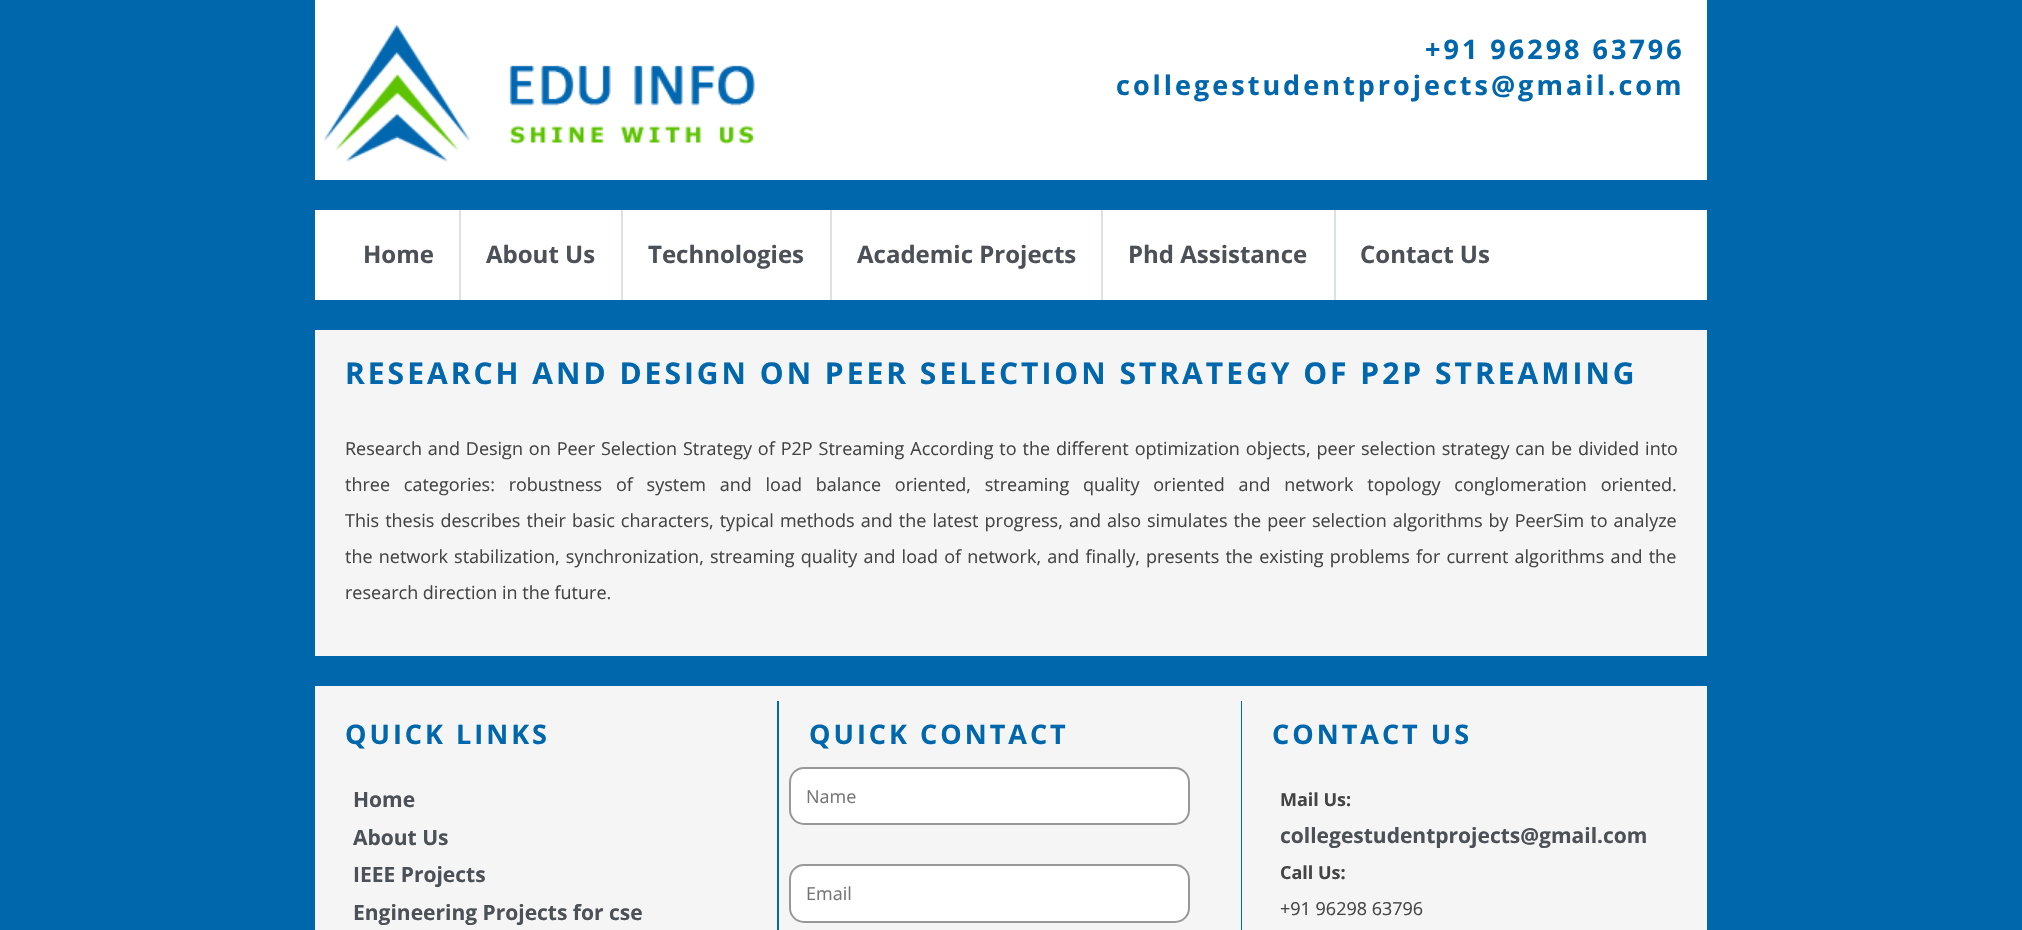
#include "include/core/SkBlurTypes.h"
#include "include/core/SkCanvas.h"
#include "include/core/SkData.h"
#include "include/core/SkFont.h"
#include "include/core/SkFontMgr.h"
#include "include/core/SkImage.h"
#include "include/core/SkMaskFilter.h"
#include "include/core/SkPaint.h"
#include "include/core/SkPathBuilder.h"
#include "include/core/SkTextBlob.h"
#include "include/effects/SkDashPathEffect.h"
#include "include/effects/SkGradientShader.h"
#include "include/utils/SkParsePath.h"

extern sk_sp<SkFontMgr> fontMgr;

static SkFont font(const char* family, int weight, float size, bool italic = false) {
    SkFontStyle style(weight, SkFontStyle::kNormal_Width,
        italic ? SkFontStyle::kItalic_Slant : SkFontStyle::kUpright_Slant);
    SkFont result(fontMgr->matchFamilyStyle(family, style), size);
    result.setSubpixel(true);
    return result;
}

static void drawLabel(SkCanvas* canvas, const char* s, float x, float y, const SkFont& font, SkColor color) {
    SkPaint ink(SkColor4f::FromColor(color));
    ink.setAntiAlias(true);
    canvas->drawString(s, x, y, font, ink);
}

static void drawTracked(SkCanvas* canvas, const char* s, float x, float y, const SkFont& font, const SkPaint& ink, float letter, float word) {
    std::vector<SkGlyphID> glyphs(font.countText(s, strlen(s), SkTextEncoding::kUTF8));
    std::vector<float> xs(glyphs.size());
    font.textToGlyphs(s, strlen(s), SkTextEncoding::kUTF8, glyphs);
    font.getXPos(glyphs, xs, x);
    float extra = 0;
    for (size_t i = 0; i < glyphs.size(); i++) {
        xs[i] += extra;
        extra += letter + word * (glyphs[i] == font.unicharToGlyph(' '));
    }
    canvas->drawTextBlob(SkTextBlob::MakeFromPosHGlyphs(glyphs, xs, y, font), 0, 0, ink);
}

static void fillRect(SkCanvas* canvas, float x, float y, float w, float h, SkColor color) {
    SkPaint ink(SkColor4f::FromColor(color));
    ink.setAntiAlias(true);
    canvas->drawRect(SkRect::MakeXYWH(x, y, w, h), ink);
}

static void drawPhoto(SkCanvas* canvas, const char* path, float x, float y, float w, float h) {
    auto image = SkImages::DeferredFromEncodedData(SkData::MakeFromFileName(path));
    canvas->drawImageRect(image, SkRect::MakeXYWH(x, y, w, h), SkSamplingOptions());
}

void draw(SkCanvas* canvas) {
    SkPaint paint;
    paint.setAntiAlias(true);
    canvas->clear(0xFF0067AC);
    fillRect(canvas, 315, 0, 1392, 180, 0xFFFFFFFF);
    drawPhoto(canvas, "assets/img1.png", 323, 25, 432, 137);
    SkFont font1 = font("Open Sans", 700, 27);
    paint.setColor(0xFF0067AC);
    drawTracked(canvas, "+91 96298 63796", 1425, 59, font1, paint, 3, 0);
    drawTracked(canvas, "collegestudentprojects@gmail.com", 1116, 95, font1, paint, 3, 0);
    fillRect(canvas, 315, 210, 1392, 90, 0xFFFFFFFF);
    fillRect(canvas, 459, 210, 2, 90, 0xFFDDE1E3);
    SkFont font2 = font("Open Sans", 700, 24);
    drawLabel(canvas, "Home", 363, 263, font2, 0xFF4B5156);
    fillRect(canvas, 621, 210, 2, 90, 0xFFDDE1E3);
    drawLabel(canvas, "About Us", 486, 263, font2, 0xFF4B5156);
    fillRect(canvas, 830, 210, 2, 90, 0xFFDDE1E3);
    drawLabel(canvas, "Technologies", 648, 263, font2, 0xFF4B5156);
    fillRect(canvas, 1101, 210, 2, 90, 0xFFDDE1E3);
    drawLabel(canvas, "Academic Projects", 857, 263, font2, 0xFF4B5156);
    fillRect(canvas, 1334, 210, 2, 90, 0xFFDDE1E3);
    drawLabel(canvas, "Phd Assistance", 1128, 263, font2, 0xFF4B5156);
    drawLabel(canvas, "Contact Us", 1360, 263, font2, 0xFF4B5156);
    fillRect(canvas, 315, 330, 1392, 326, 0xFFF5F5F5);
    SkFont font3 = font("Open Sans", 700, 30);
    drawTracked(canvas, "RESEARCH AND DESIGN ON PEER SELECTION STRATEGY OF P2P STREAMING", 345, 384, font3, paint, 3, 0);
    SkFont font4 = font("Open Sans", 400, 18);
    paint.setColor(0xFF444444);
    drawTracked(canvas, "Research and Design on Peer Selection Strategy of P2P Streaming According to the different optimization objects, peer selection strategy can be divided into", 345, 455, font4, paint, 0, 1.25f);
    drawTracked(canvas, "three categories: robustness of system and load balance oriented, streaming quality oriented and network topology conglomeration oriented.", 345, 491, font4, paint, 0, 9.1f);
    drawTracked(canvas, "This thesis describes their basic characters, typical methods and the latest progress, and also simulates the peer selection algorithms by PeerSim to analyze", 345, 527, font4, paint, 0, 1.4f);
    drawTracked(canvas, "the network stabilization, synchronization, streaming quality and load of network, and finally, presents the existing problems for current algorithms and the", 345, 563, font4, paint, 0, 1.5f);
    drawLabel(canvas, "research direction in the future.", 345, 599, font4, 0xFF444444);
    fillRect(canvas, 315, 686, 1392, 244, 0xFFF5F5F5);
    paint.setColor(0xFF0067AC);
    drawTracked(canvas, "QUICK LINKS", 345, 744, font1, paint, 3, 0);
    SkFont font5 = font("Open Sans", 700, 21);
    drawLabel(canvas, "Home", 353, 807, font5, 0xFF4B5156);
    drawLabel(canvas, "About Us", 353, 845, font5, 0xFF4B5156);
    drawLabel(canvas, "IEEE Projects", 353, 882, font5, 0xFF4B5156);
    drawLabel(canvas, "Engineering Projects for cse", 353, 920, font5, 0xFF4B5156);
    fillRect(canvas, 1241, 701, 1, 229, 0xFF0067AC);
    fillRect(canvas, 777, 701, 2, 229, 0xFF0067AC);
    drawTracked(canvas, "QUICK CONTACT", 809, 744, font1, paint, 3, 0);
    paint.setColor(0xFFFFFFFF);
    canvas->drawRoundRect(SkRect::MakeXYWH(790, 768, 399, 56), 14, 14, paint);
    paint.setStroke(true);
    paint.setStrokeWidth(2);
    paint.setColor(0xFF989898);
    canvas->drawRoundRect(SkRect::MakeXYWH(790, 768, 399, 56), 14, 14, paint);
    drawLabel(canvas, "Name", 806, 803, font4, 0xFF757575);
    paint.setStroke(false);
    paint.setColor(0xFFFFFFFF);
    canvas->drawRoundRect(SkRect::MakeXYWH(790, 865, 399, 57), 14, 14, paint);
    paint.setStroke(true);
    paint.setColor(0xFF989898);
    canvas->drawRoundRect(SkRect::MakeXYWH(790, 865, 399, 57), 14, 14, paint);
    drawLabel(canvas, "Email", 806, 900, font4, 0xFF757575);
    paint.setStroke(false);
    paint.setColor(0xFF0067AC);
    drawTracked(canvas, "CONTACT US", 1272, 744, font1, paint, 3, 0);
    SkFont font6 = font("Open Sans", 700, 18);
    drawLabel(canvas, "Mail Us:", 1280, 806, font6, 0xFF444444);
    drawLabel(canvas, "collegestudentprojects@gmail.com", 1280, 843, font5, 0xFF4B5156);
    drawLabel(canvas, "Call Us:", 1280, 879, font6, 0xFF444444);
    drawLabel(canvas, "+91 96298 63796", 1280, 915, font4, 0xFF444444);
}
